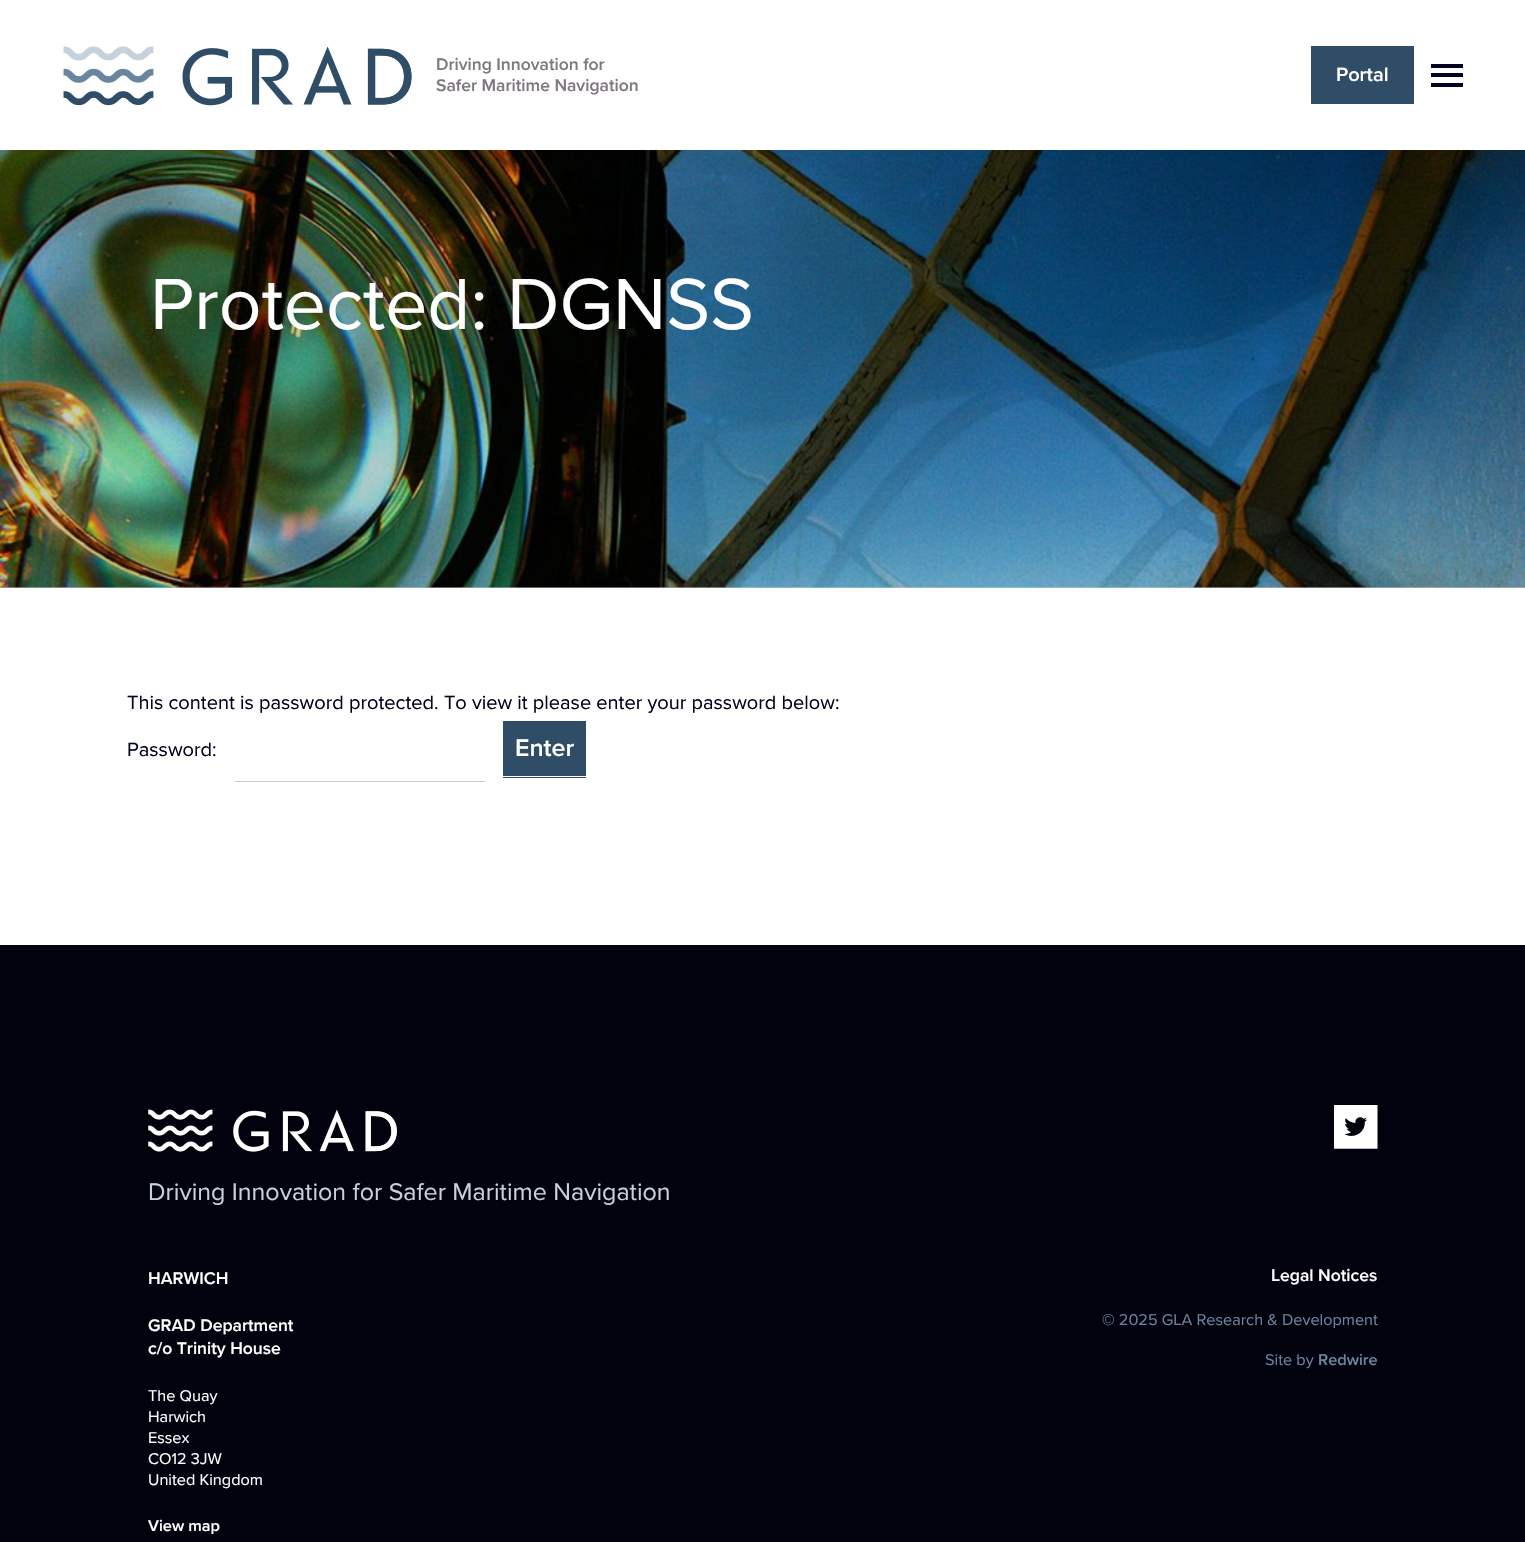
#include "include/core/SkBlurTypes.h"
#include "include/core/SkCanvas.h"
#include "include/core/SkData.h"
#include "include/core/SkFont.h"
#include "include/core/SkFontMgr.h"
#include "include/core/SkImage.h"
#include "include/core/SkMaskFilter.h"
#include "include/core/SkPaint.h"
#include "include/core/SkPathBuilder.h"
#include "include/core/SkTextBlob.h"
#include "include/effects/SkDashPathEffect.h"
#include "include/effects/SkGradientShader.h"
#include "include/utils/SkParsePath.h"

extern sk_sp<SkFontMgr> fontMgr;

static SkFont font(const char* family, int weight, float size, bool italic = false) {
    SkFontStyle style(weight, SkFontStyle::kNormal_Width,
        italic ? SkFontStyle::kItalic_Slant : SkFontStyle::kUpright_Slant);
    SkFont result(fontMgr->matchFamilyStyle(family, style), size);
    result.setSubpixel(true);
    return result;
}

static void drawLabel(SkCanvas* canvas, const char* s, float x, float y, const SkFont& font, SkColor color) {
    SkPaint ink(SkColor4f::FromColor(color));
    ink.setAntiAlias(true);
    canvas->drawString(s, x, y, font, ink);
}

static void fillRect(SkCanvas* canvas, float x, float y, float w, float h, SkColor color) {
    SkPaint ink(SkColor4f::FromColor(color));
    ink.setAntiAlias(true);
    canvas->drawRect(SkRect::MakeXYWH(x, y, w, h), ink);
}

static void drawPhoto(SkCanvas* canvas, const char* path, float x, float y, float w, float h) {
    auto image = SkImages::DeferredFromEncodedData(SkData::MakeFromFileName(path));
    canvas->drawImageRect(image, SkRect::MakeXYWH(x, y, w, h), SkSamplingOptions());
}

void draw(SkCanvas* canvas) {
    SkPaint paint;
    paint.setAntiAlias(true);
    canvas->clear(0xFFFFFFFF);
    fillRect(canvas, 0, 587, 1525, 1, 0xFFCCCCCC);
    drawPhoto(canvas, "assets/img1.png", 63, 46, 349, 60);
    SkFont font1 = font("Proxima Nova", 600, 17.5f);
    drawLabel(canvas, "Driving Innovation for", 436, 70, font1, 0xFF807880);
    drawLabel(canvas, "Safer Maritime Navigation", 436, 91, font1, 0xFF807880);
    fillRect(canvas, 1311, 46, 103, 58, 0xFF2F4D66);
    SkFont font2 = font("Proxima Nova", 600, 20);
    drawLabel(canvas, "Portal", 1336, 81, font2, 0xFFFFFFFF);
    fillRect(canvas, 1431, 64, 32, 4, 0xFF010421);
    fillRect(canvas, 1431, 73, 32, 4, 0xFF010421);
    fillRect(canvas, 1431, 83, 32, 4, 0xFF010421);
    drawPhoto(canvas, "assets/img2.png", 0, 150, 1525, 438);
    SkFont font3 = font("Proxima Nova", 400, 75);
    drawLabel(canvas, "Protected: DGNSS", 150, 329, font3, 0xFFFFFFFF);
    SkFont font4 = font("Proxima Nova", 400, 20);
    drawLabel(canvas, "This content is password protected. To view it please enter your password below:", 127, 709, font4, 0xFF010421);
    drawLabel(canvas, "Password:", 127, 756, font4, 0xFF010421);
    fillRect(canvas, 235, 781, 250, 1, 0xFFCBC8CE);
    fillRect(canvas, 503, 721, 83, 57, 0xFF2F4D66);
    fillRect(canvas, 503, 776, 83, 1, 0xFFFFFFFF);
    SkFont font5 = font("Proxima Nova", 600, 25);
    drawLabel(canvas, "Enter", 515, 756, font5, 0xFFFFFFFF);
    fillRect(canvas, 0, 945, 1525, 597, 0xFF01020D);
    drawPhoto(canvas, "assets/img3.png", 148, 1109, 249, 43);
    drawPhoto(canvas, "assets/img4.png", 1334, 1105, 44, 44);
    SkFont font6 = font("Proxima Nova", 400, 25);
    drawLabel(canvas, "Driving Innovation for Safer Maritime Navigation", 148, 1200, font6, 0xFFC7D1DA);
    drawLabel(canvas, "HARWICH", 148, 1284, font1, 0xFFFFFFFF);
    drawLabel(canvas, "GRAD Department", 148, 1331, font1, 0xFFFFFFFF);
    drawLabel(canvas, "c/o Trinity House", 148, 1354, font1, 0xFFFFFFFF);
    SkFont font7 = font("Proxima Nova", 400, 16.25f);
    drawLabel(canvas, "The Quay", 148, 1401, font7, 0xFFFFFFFF);
    drawLabel(canvas, "Harwich", 148, 1422, font7, 0xFFFFFFFF);
    drawLabel(canvas, "Essex", 148, 1443, font7, 0xFFFFFFFF);
    drawLabel(canvas, "CO12 3JW", 148, 1464, font7, 0xFFFFFFFF);
    drawLabel(canvas, "United Kingdom", 148, 1485, font7, 0xFFFFFFFF);
    SkFont font8 = font("Proxima Nova", 600, 16.25f);
    drawLabel(canvas, "View map", 148, 1531, font8, 0xFFFFFFFF);
    drawLabel(canvas, "Legal Notices", 1271, 1281, font1, 0xFFFFFFFF);
    drawLabel(canvas, "© 2025 GLA Research & Development", 1102, 1325, font7, 0xFF6B859E);
    drawLabel(canvas, "Site by", 1265, 1365, font7, 0xFF6B859E);
    drawLabel(canvas, "Redwire", 1318, 1365, font8, 0xFF6B859E);
}
